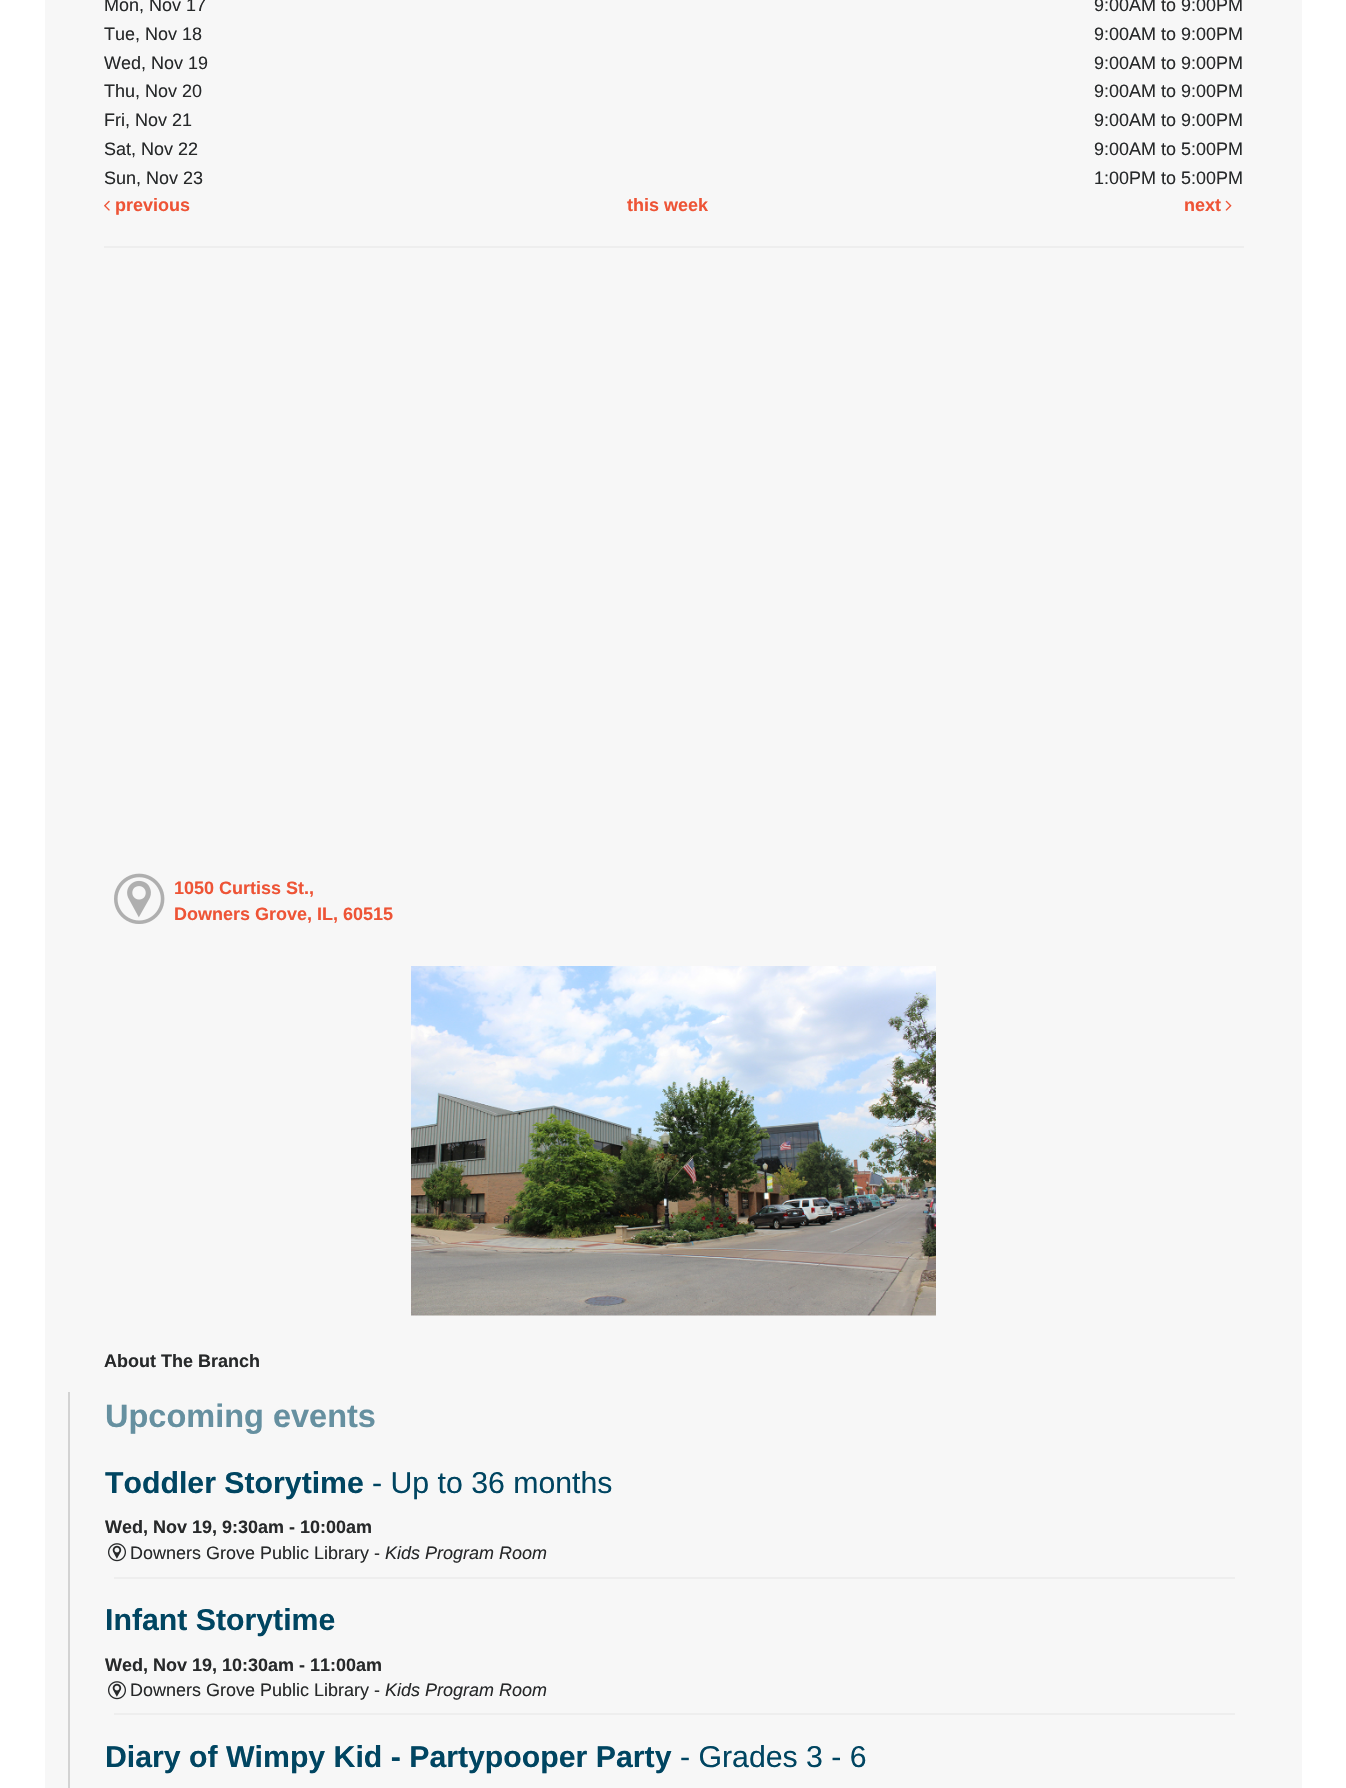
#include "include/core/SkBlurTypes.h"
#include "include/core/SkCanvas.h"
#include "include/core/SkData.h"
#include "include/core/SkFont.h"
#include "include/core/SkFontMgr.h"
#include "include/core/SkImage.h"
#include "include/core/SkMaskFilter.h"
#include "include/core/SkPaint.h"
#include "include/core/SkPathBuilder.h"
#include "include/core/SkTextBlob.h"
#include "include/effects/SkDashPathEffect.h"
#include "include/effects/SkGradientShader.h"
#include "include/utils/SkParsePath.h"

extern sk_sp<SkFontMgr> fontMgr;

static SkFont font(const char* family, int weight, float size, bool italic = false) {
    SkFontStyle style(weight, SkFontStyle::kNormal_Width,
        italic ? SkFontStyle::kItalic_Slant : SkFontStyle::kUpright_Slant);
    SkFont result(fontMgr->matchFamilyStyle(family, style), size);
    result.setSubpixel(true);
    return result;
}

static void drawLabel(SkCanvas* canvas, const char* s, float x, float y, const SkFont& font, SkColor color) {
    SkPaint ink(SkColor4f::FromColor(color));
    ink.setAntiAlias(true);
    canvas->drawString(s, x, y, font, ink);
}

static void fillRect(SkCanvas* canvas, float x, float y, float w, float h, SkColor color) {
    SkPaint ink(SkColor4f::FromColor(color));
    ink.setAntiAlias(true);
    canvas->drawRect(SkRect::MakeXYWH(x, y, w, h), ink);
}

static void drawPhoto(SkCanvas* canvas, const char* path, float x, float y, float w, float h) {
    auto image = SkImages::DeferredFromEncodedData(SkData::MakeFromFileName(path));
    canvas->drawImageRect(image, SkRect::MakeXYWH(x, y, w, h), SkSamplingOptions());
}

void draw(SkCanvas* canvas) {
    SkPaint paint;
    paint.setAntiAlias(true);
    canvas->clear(0xFFFFFFFF);
    fillRect(canvas, 45, 0, 1257, 1788, 0xFFF7F7F7);
    SkFont font1 = font("Liberation Sans", 400, 18);
    drawLabel(canvas, "Mon, Nov 17", 104, 11, font1, 0xFF27292A);
    drawLabel(canvas, "9:00AM to 9:00PM", 1094, 11, font1, 0xFF27292A);
    drawLabel(canvas, "Tue, Nov 18", 104, 40, font1, 0xFF27292A);
    drawLabel(canvas, "9:00AM to 9:00PM", 1094, 40, font1, 0xFF27292A);
    drawLabel(canvas, "Wed, Nov 19", 104, 69, font1, 0xFF27292A);
    drawLabel(canvas, "9:00AM to 9:00PM", 1094, 69, font1, 0xFF27292A);
    drawLabel(canvas, "Thu, Nov 20", 104, 97, font1, 0xFF27292A);
    drawLabel(canvas, "9:00AM to 9:00PM", 1094, 97, font1, 0xFF27292A);
    drawLabel(canvas, "Fri, Nov 21", 104, 126, font1, 0xFF27292A);
    drawLabel(canvas, "9:00AM to 9:00PM", 1094, 126, font1, 0xFF27292A);
    drawLabel(canvas, "Sat, Nov 22", 104, 155, font1, 0xFF27292A);
    drawLabel(canvas, "9:00AM to 5:00PM", 1094, 155, font1, 0xFF27292A);
    drawLabel(canvas, "Sun, Nov 23", 104, 184, font1, 0xFF27292A);
    drawLabel(canvas, "1:00PM to 5:00PM", 1094, 184, font1, 0xFF27292A);
    drawPhoto(canvas, "assets/img1.png", 104, 200, 6, 11);
    SkFont font2 = font("Liberation Sans", 700, 18);
    drawLabel(canvas, "previous", 115, 211, font2, 0xFFEE5436);
    drawLabel(canvas, "this week", 627, 211, font2, 0xFFEE5436);
    drawLabel(canvas, "next", 1184, 211, font2, 0xFFEE5436);
    drawPhoto(canvas, "assets/img2.png", 1225, 200, 7, 11);
    fillRect(canvas, 104, 246, 1140, 2, 0xFFEEEEEE);
    drawPhoto(canvas, "assets/img3.png", 114, 873, 51, 51);
    drawLabel(canvas, "1050 Curtiss St.,", 174, 894, font2, 0xFFEE5436);
    drawLabel(canvas, "Downers Grove, IL, 60515", 174, 920, font2, 0xFFEE5436);
    drawPhoto(canvas, "assets/img4.png", 411, 966, 525, 350);
    drawLabel(canvas, "About The Branch", 104, 1367, font2, 0xFF27292A);
    fillRect(canvas, 68, 1392, 2, 396, 0xFFD3D3D3);
    SkFont font3 = font("Liberation Sans", 700, 32.5f);
    drawLabel(canvas, "Upcoming events", 105, 1427, font3, 0xFF6690A0);
    SkFont font4 = font("Liberation Sans", 700, 30.25f);
    drawLabel(canvas, "Toddler Storytime", 105, 1493, font4, 0xFF004561);
    SkFont font5 = font("Liberation Sans", 400, 30.25f);
    drawLabel(canvas, "- Up to 36 months", 372, 1493, font5, 0xFF004561);
    drawLabel(canvas, "Wed, Nov 19, 9:30am - 10:00am", 105, 1533, font2, 0xFF27292A);
    drawPhoto(canvas, "assets/img5.png", 108, 1543, 18, 19);
    drawLabel(canvas, "Downers Grove Public Library -", 130, 1559, font1, 0xFF27292A);
    SkFont font6 = font("Liberation Sans", 400, 18, true);
    drawLabel(canvas, "Kids Program Room", 385, 1559, font6, 0xFF27292A);
    fillRect(canvas, 114, 1577, 1121, 2, 0xFFEEEEEE);
    drawLabel(canvas, "Infant Storytime", 105, 1630, font4, 0xFF004561);
    drawLabel(canvas, "Wed, Nov 19, 10:30am - 11:00am", 105, 1671, font2, 0xFF27292A);
    drawPhoto(canvas, "assets/img5.png", 108, 1681, 18, 19);
    drawLabel(canvas, "Downers Grove Public Library -", 130, 1696, font1, 0xFF27292A);
    drawLabel(canvas, "Kids Program Room", 385, 1696, font6, 0xFF27292A);
    fillRect(canvas, 114, 1713, 1121, 2, 0xFFEEEEEE);
    drawLabel(canvas, "Diary of Wimpy Kid - Partypooper Party", 105, 1767, font4, 0xFF004561);
    drawLabel(canvas, "- Grades 3 - 6", 680, 1767, font5, 0xFF004561);
}
